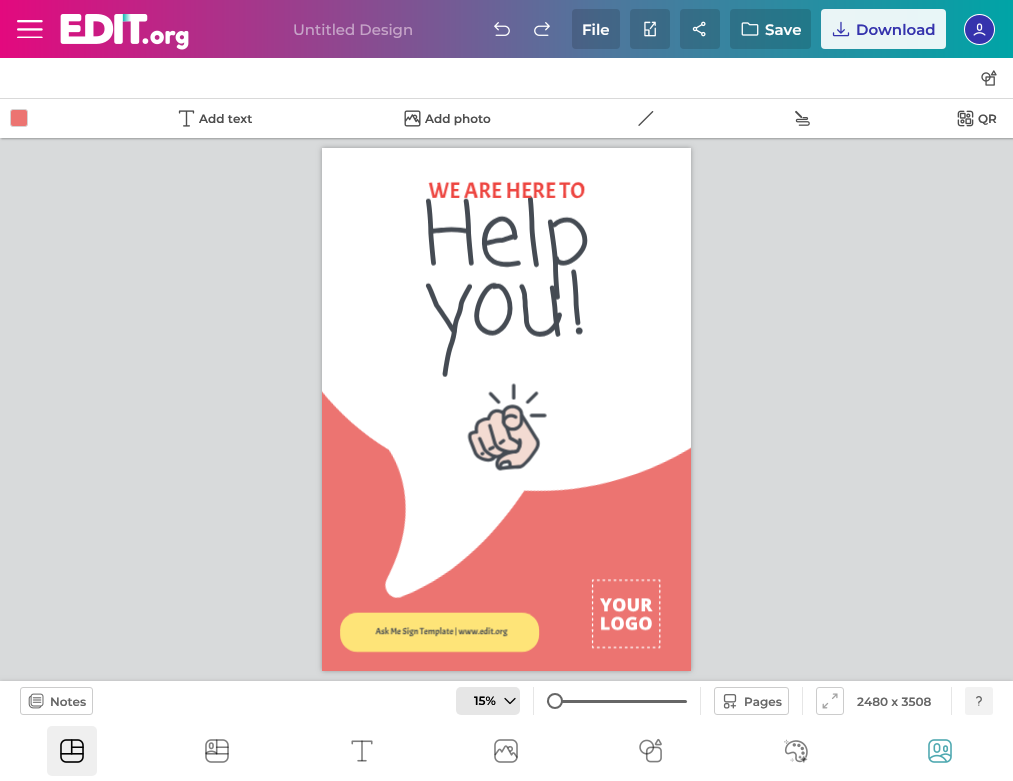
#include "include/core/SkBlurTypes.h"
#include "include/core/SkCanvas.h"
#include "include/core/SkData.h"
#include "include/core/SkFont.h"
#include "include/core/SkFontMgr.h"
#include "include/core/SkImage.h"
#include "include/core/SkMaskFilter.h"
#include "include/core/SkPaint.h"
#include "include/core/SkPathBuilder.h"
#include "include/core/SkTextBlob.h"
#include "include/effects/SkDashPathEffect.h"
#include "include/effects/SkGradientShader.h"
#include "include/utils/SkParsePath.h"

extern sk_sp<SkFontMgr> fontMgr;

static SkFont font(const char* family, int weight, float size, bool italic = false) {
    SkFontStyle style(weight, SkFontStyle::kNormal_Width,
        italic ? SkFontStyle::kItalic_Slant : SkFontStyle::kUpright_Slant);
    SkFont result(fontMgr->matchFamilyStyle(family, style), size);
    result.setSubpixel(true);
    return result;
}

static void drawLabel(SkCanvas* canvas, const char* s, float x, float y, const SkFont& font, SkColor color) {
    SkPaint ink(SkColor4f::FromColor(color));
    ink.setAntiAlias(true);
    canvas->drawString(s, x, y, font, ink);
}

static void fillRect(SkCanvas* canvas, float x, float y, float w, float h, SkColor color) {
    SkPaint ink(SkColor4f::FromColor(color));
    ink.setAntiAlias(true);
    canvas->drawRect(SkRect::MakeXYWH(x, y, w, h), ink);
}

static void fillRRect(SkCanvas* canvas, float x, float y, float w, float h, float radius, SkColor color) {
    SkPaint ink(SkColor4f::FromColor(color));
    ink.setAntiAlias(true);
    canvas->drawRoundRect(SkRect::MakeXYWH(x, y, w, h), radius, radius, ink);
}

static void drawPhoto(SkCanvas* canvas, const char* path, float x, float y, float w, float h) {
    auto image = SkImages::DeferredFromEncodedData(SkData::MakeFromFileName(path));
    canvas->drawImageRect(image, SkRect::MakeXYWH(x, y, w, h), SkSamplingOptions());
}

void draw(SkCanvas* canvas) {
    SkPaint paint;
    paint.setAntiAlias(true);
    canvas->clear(0xFFD8DADB);
    paint.setColor(0x4D000000);
    paint.setMaskFilter(SkMaskFilter::MakeBlur(kNormal_SkBlurStyle, 1));
    canvas->drawRect(SkRect::MakeXYWH(1, 59, 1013, 80), paint);
    paint.setMaskFilter(nullptr);
    {
        const SkColor colors[] = {0xFFE3097E, 0xFF4E779D, 0xFF00A4A6};
        const float stops[] = {0, 0.6f, 1};
        const SkPoint ends[] = {{0, 29}, {1013, 29}};
        paint.setShader(SkGradientShader::MakeLinear(ends, colors, stops, 3, SkTileMode::kClamp));
        paint.setAlpha(255);
    }
    canvas->drawRect(SkRect::MakeXYWH(0, 0, 1013, 58), paint);
    drawPhoto(canvas, "assets/img1.png", 17, 20, 26, 18);
    drawPhoto(canvas, "assets/img2.png", 60, 14, 129, 36);
    SkFont font1 = font("Montserrat", 500, 15);
    drawLabel(canvas, "Untitled Design", 293, 35, font1, 0xFFC6A4C8);
    drawPhoto(canvas, "assets/img3.png", 494, 22, 16, 14);
    drawPhoto(canvas, "assets/img4.png", 534, 22, 16, 14);
    fillRRect(canvas, 572, 9, 48, 40, 4, 0x26000000);
    SkFont font2 = font("Montserrat", 600, 15);
    drawLabel(canvas, "File", 582, 35, font2, 0xFFFFFFFF);
    fillRRect(canvas, 630, 9, 40, 40, 4, 0x26000000);
    drawPhoto(canvas, "assets/img5.png", 644, 21, 12, 16);
    fillRRect(canvas, 680, 9, 40, 40, 4, 0x26000000);
    drawPhoto(canvas, "assets/img6.png", 692, 21, 14, 16);
    fillRRect(canvas, 730, 9, 81, 40, 4, 0x26000000);
    drawPhoto(canvas, "assets/img7.png", 741, 22, 18, 14);
    drawLabel(canvas, "Save", 765, 35, font2, 0xFFFFFFFF);
    fillRRect(canvas, 821, 9, 125, 40, 4, 0xE6FFFFFF);
    drawPhoto(canvas, "assets/img8.png", 832, 21, 18, 16);
    drawLabel(canvas, "Download", 856, 35, font2, 0xFF3533AD);
    drawPhoto(canvas, "assets/img9.png", 964, 14, 31, 31);
    fillRect(canvas, 0, 58, 1013, 80, 0xFFFFFFFF);
    drawPhoto(canvas, "assets/img10.png", 981, 70, 16, 16);
    fillRect(canvas, 0, 98, 1013, 1, 0xFFD9D9D9);
    paint.setShader(nullptr);
    paint.setColor(0xFFEC7471);
    canvas->drawRoundRect(SkRect::MakeXYWH(10.5f, 109.5f, 17, 17), 2.5f, 2.5f, paint);
    paint.setStroke(true);
    paint.setStrokeWidth(1);
    paint.setColor(0xFFD6D4D4);
    canvas->drawRoundRect(SkRect::MakeXYWH(10.5f, 109.5f, 17, 17), 2.5f, 2.5f, paint);
    drawPhoto(canvas, "assets/img11.png", 178, 110, 17, 17);
    SkFont font3 = font("Montserrat", 600, 12);
    drawLabel(canvas, "Add text", 199, 123, font3, 0xFF4D4D4D);
    drawPhoto(canvas, "assets/img12.png", 404, 110, 17, 17);
    drawLabel(canvas, "Add photo", 425, 123, font3, 0xFF4D4D4D);
    drawPhoto(canvas, "assets/img13.png", 638, 111, 16, 15);
    drawPhoto(canvas, "assets/img14.png", 795, 110, 15, 16);
    drawPhoto(canvas, "assets/img15.png", 957, 110, 17, 17);
    drawLabel(canvas, "QR", 978, 123, font3, 0xFF4D4D4D);
    paint.setStroke(false);
    paint.setColor(0x4D000000);
    paint.setMaskFilter(SkMaskFilter::MakeBlur(kNormal_SkBlurStyle, 2.5f));
    canvas->drawRect(SkRect::MakeXYWH(322, 148, 369, 523), paint);
    paint.setMaskFilter(nullptr);
    fillRect(canvas, 322, 148, 369, 33, 0xFFFFFFFF);
    drawPhoto(canvas, "assets/img16.png", 322, 181, 369, 490);
    paint.setColor(0x29000000);
    paint.setMaskFilter(SkMaskFilter::MakeBlur(kNormal_SkBlurStyle, 2));
    canvas->drawRect(SkRect::MakeXYWH(0, 681, 1013, 40), paint);
    paint.setMaskFilter(nullptr);
    fillRect(canvas, 0, 681, 1013, 100, 0xFFFFFFFF);
    paint.setStroke(true);
    paint.setColor(0xFFCCCCCC);
    canvas->drawRoundRect(SkRect::MakeXYWH(20.5f, 687.5f, 72, 27), 2.5f, 2.5f, paint);
    drawPhoto(canvas, "assets/img17.png", 28, 693, 16, 16);
    drawLabel(canvas, "Notes", 50, 706, font3, 0xFF666666);
    fillRect(canvas, 533, 687, 1, 28, 0xFFE6E6E6);
    fillRRect(canvas, 456, 687, 64, 28, 5, 0xFFE6E6E6);
    drawLabel(canvas, "15%", 474, 705, font3, 0xFF000000);
    drawPhoto(canvas, "assets/img18.png", 504, 697, 12, 8);
    fillRRect(canvas, 547, 700, 140, 3, 1.5f, 0xFF666666);
    paint.setStroke(false);
    paint.setColor(0xFFFFFFFF);
    canvas->drawCircle(555, 701, 7, paint);
    paint.setStroke(true);
    paint.setStrokeWidth(2);
    paint.setColor(0xFF666666);
    canvas->drawCircle(555, 701, 7, paint);
    fillRect(canvas, 700, 687, 1, 28, 0xFFE6E6E6);
    paint.setStrokeWidth(1);
    paint.setColor(0xFFCCCCCC);
    canvas->drawRoundRect(SkRect::MakeXYWH(714.5f, 687.5f, 74, 27), 2.5f, 2.5f, paint);
    drawPhoto(canvas, "assets/img19.png", 723, 694, 14, 15);
    drawLabel(canvas, "Pages", 744, 706, font3, 0xFF666666);
    fillRect(canvas, 802, 687, 1, 28, 0xFFE6E6E6);
    canvas->drawRoundRect(SkRect::MakeXYWH(816.5f, 687.5f, 27, 27), 2.5f, 2.5f, paint);
    drawPhoto(canvas, "assets/img20.png", 822, 693, 16, 16);
    drawLabel(canvas, "2480 x 3508", 857, 706, font3, 0xFF666666);
    fillRect(canvas, 951, 687, 1, 28, 0xFFE6E6E6);
    fillRRect(canvas, 965, 687, 28, 28, 3, 0xFFF2F2F2);
    drawPhoto(canvas, "assets/img21.png", 976, 696, 6, 10);
    fillRRect(canvas, 47, 726, 50, 50, 5, 0xFFEFEFEF);
    drawPhoto(canvas, "assets/img22.png", 60, 739, 24, 24);
    drawPhoto(canvas, "assets/img23.png", 205, 739, 24, 24);
    drawPhoto(canvas, "assets/img24.png", 351, 740, 22, 22);
    drawPhoto(canvas, "assets/img25.png", 494, 739, 24, 24);
    drawPhoto(canvas, "assets/img26.png", 639, 738, 23, 25);
    drawPhoto(canvas, "assets/img27.png", 784, 739, 24, 24);
    drawPhoto(canvas, "assets/img28.png", 928, 739, 24, 24);
}
